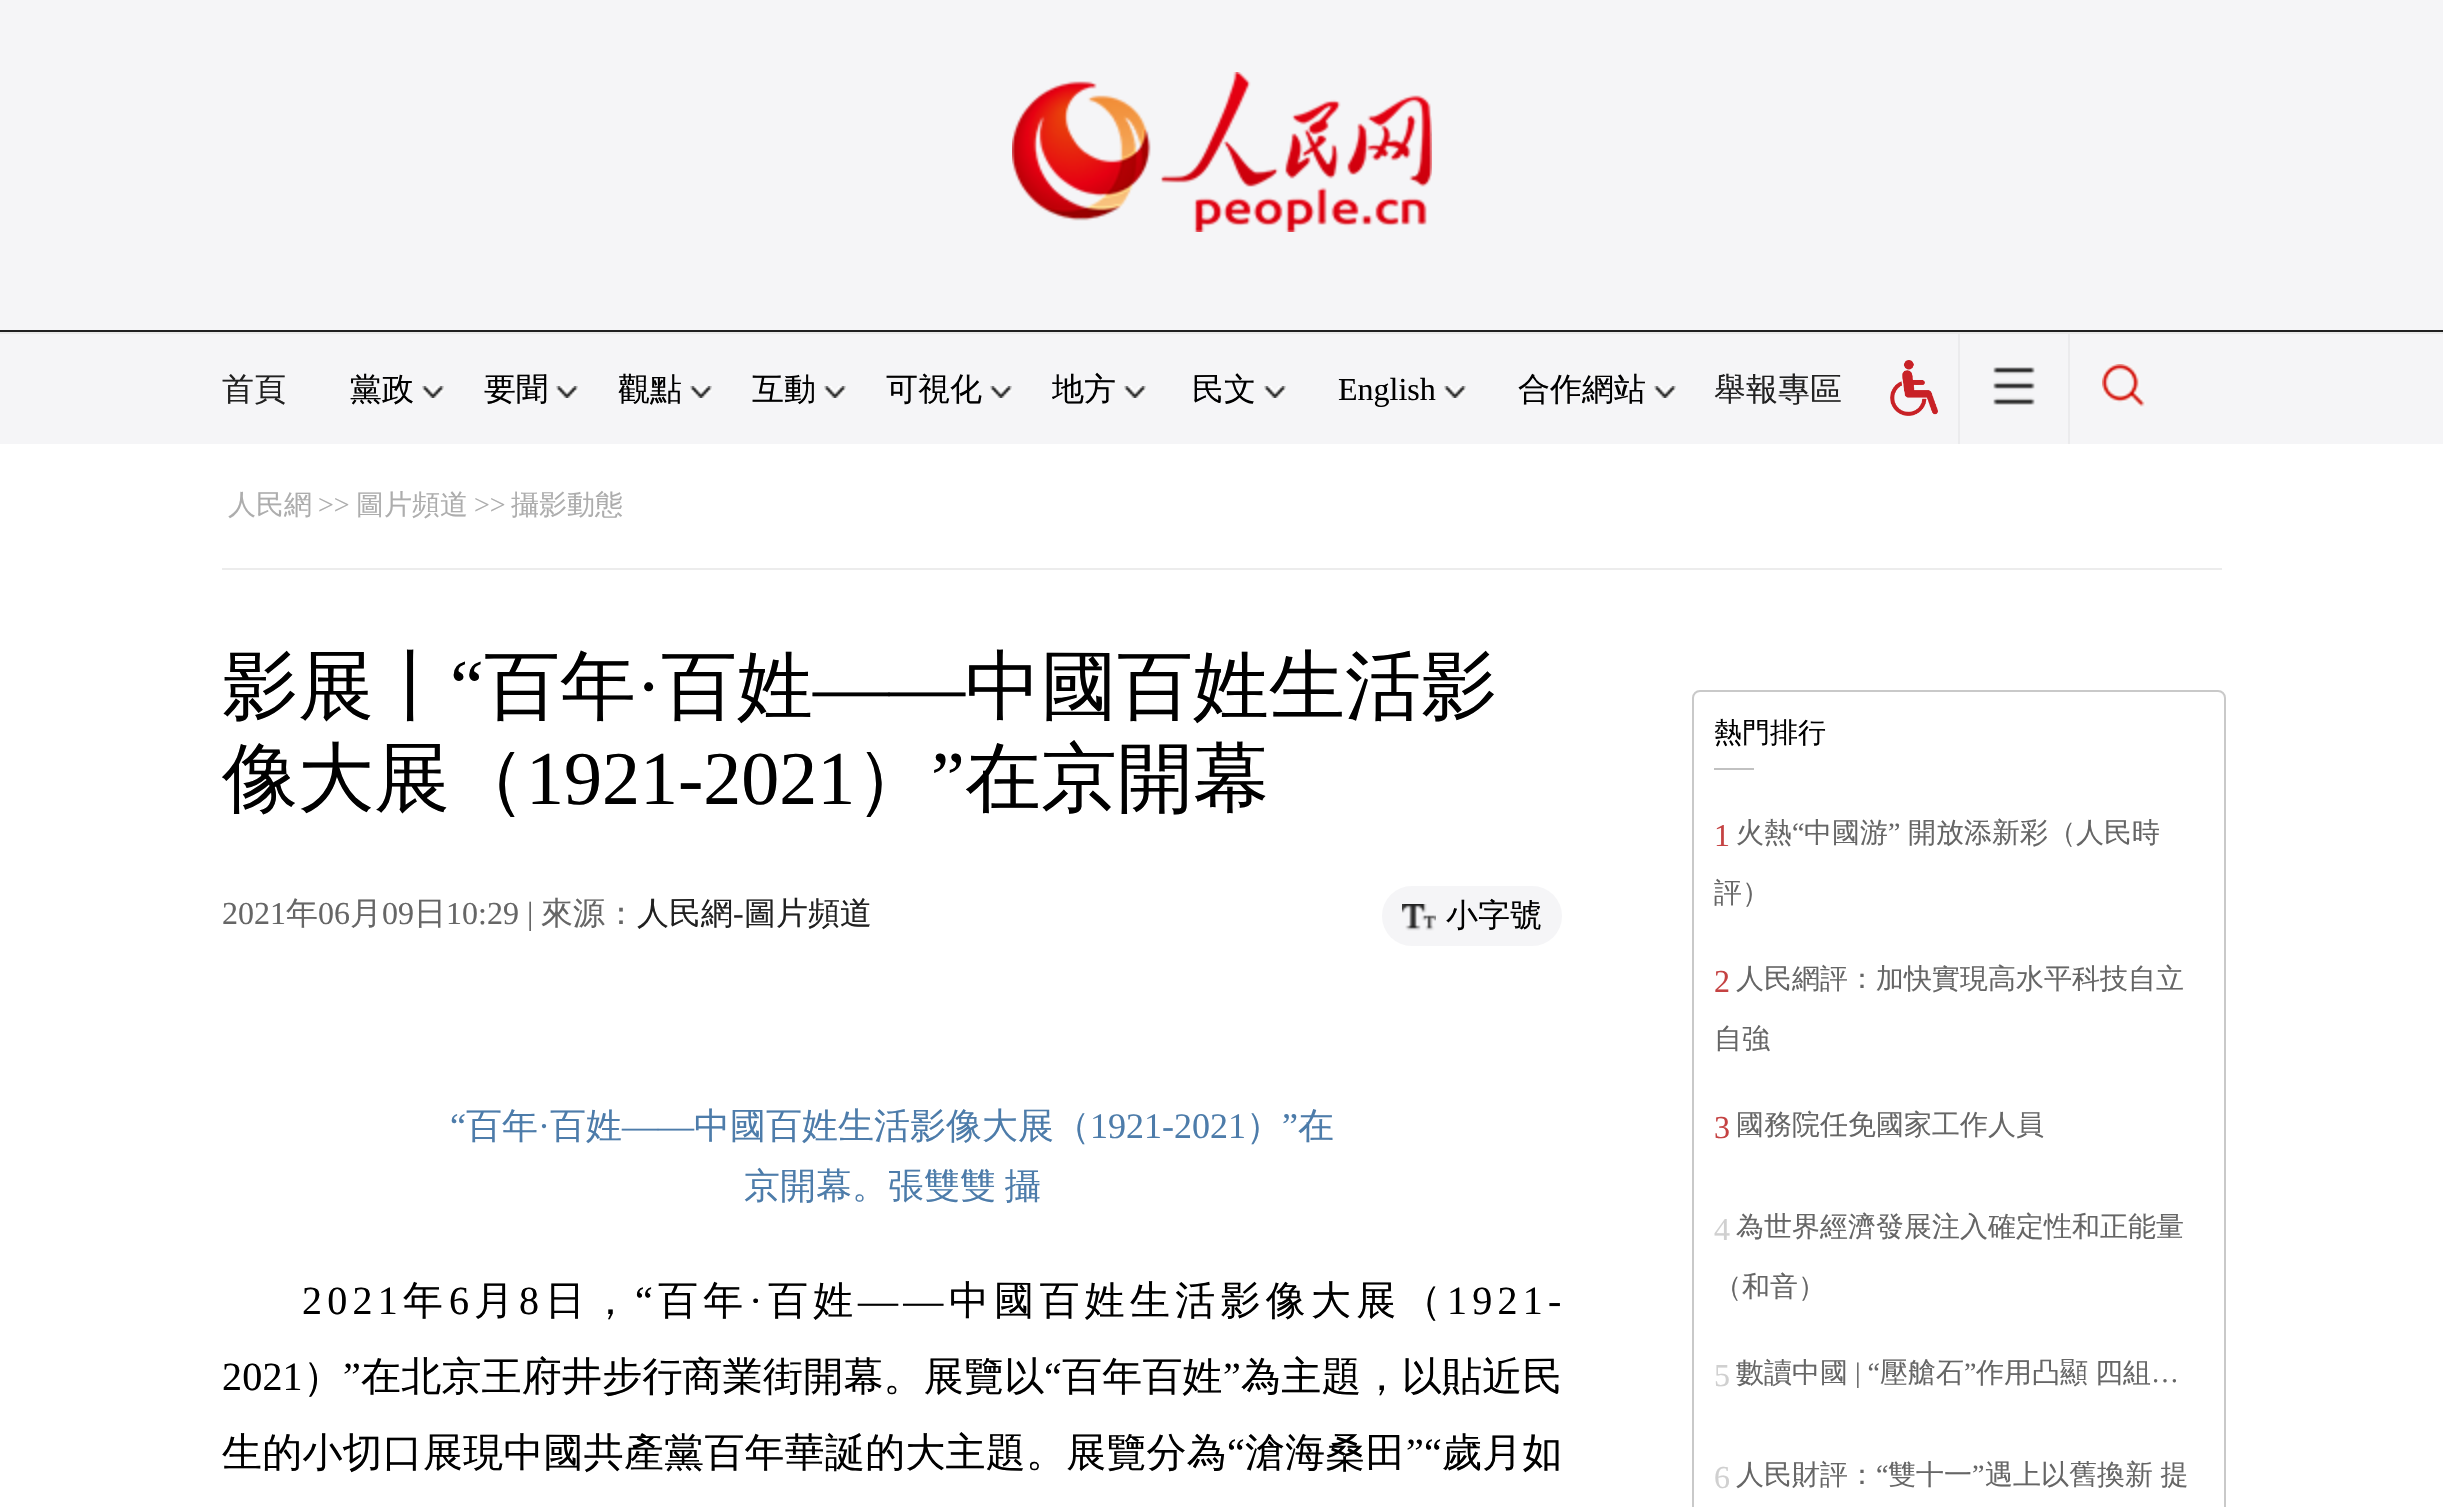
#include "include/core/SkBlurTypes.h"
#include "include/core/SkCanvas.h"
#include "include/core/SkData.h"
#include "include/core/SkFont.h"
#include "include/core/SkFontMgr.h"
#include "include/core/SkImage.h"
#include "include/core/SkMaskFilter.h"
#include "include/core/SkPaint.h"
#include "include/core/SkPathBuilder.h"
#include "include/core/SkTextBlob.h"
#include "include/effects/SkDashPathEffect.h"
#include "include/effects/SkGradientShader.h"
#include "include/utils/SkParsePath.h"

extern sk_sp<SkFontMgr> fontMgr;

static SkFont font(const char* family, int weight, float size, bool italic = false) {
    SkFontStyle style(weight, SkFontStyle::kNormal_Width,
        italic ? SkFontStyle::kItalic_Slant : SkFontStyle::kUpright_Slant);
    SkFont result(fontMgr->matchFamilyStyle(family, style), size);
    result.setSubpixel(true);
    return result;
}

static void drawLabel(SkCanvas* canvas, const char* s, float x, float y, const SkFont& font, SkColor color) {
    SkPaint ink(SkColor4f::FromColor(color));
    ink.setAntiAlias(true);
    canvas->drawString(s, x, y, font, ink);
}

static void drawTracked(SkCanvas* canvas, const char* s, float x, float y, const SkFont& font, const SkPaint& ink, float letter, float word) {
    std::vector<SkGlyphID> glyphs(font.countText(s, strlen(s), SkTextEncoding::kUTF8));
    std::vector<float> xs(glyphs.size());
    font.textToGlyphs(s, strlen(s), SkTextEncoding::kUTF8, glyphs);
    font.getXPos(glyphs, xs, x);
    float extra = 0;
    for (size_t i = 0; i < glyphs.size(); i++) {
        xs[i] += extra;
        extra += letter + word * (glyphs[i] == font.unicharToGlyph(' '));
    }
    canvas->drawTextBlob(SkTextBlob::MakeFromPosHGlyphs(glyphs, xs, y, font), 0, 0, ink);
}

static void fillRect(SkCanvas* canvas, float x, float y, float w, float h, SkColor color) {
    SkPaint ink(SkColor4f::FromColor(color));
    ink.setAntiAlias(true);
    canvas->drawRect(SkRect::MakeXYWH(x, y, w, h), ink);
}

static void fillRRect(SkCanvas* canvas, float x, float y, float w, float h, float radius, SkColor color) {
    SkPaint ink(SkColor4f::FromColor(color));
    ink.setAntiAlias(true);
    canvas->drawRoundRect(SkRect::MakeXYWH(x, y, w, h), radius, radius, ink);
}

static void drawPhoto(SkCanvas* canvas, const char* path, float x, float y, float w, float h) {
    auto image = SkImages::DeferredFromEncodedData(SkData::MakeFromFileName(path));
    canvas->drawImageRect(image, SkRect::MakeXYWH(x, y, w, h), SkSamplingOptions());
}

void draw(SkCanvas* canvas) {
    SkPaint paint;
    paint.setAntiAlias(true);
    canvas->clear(0xFFFFFFFF);
    fillRect(canvas, 0, 0, 2443, 330, 0xFFF5F5F7);
    fillRect(canvas, 0, 330, 2443, 2, 0xFF212121);
    drawPhoto(canvas, "assets/img1.png", 1012, 72, 420, 160);
    fillRect(canvas, 0, 332, 2443, 2, 0xFFE9E9E9);
    fillRect(canvas, 0, 334, 2443, 110, 0xFFF5F5F7);
    SkFont font1 = font("WenQuanYi Zen Hei", 500, 32);
    drawLabel(canvas, "首頁", 222, 400, font1, 0xFF212121);
    drawLabel(canvas, "黨政", 350, 400, font1, 0xFF000000);
    drawPhoto(canvas, "assets/img2.png", 422, 386, 22, 12);
    drawLabel(canvas, "要聞", 484, 400, font1, 0xFF000000);
    drawPhoto(canvas, "assets/img2.png", 556, 386, 22, 12);
    drawLabel(canvas, "觀點", 618, 400, font1, 0xFF000000);
    drawPhoto(canvas, "assets/img2.png", 690, 386, 22, 12);
    drawLabel(canvas, "互動", 752, 400, font1, 0xFF000000);
    drawPhoto(canvas, "assets/img2.png", 824, 386, 22, 12);
    drawLabel(canvas, "可視化", 886, 400, font1, 0xFF000000);
    drawPhoto(canvas, "assets/img2.png", 990, 386, 22, 12);
    drawLabel(canvas, "地方", 1052, 400, font1, 0xFF000000);
    drawPhoto(canvas, "assets/img2.png", 1124, 386, 22, 12);
    drawLabel(canvas, "民文", 1192, 400, font1, 0xFF000000);
    drawPhoto(canvas, "assets/img2.png", 1264, 386, 22, 12);
    SkFont font2 = font("Liberation Serif", 400, 32);
    drawLabel(canvas, "English", 1338, 400, font2, 0xFF000000);
    drawPhoto(canvas, "assets/img2.png", 1444, 386, 22, 12);
    drawLabel(canvas, "合作網站", 1518, 400, font1, 0xFF000000);
    drawPhoto(canvas, "assets/img2.png", 1654, 386, 22, 12);
    drawLabel(canvas, "舉報專區", 1714, 400, font1, 0xFF212121);
    drawPhoto(canvas, "assets/img3.png", 1890, 360, 48, 56);
    fillRect(canvas, 2068, 334, 2, 110, 0xFFEBEBED);
    fillRect(canvas, 1958, 334, 2, 110, 0xFFEBEBED);
    drawPhoto(canvas, "assets/img4.png", 1993, 367, 42, 38);
    drawPhoto(canvas, "assets/img5.png", 2102, 364, 44, 44);
    fillRect(canvas, 222, 568, 2000, 2, 0xFFECECEC);
    SkFont font3 = font("WenQuanYi Zen Hei", 500, 28);
    drawLabel(canvas, "人民網", 228, 514, font3, 0xFFADADAD);
    SkFont font4 = font("Liberation Serif", 400, 28);
    drawLabel(canvas, ">>", 318, 514, font4, 0xFFADADAD);
    drawLabel(canvas, "圖片頻道", 356, 514, font3, 0xFFADADAD);
    drawLabel(canvas, ">>", 474, 514, font4, 0xFFADADAD);
    drawLabel(canvas, "攝影動態", 511, 514, font3, 0xFFADADAD);
    SkFont font5 = font("WenQuanYi Zen Hei", 500, 76);
    drawLabel(canvas, "影展丨", 222, 712, font5, 0xFF000000);
    SkFont font6 = font("Liberation Serif", 400, 76);
    drawLabel(canvas, "“", 450, 712, font6, 0xFF000000);
    drawLabel(canvas, "百年", 484, 712, font5, 0xFF000000);
    drawLabel(canvas, "百姓", 661, 712, font5, 0xFF000000);
    drawLabel(canvas, "中國百姓生活影", 965, 712, font5, 0xFF000000);
    drawLabel(canvas, "·", 636, 712, font6, 0xFF000000);
    drawLabel(canvas, "——", 813, 712, font6, 0xFF000000);
    drawLabel(canvas, "像大展（", 222, 804, font5, 0xFF000000);
    drawLabel(canvas, "1921-2021", 526, 804, font6, 0xFF000000);
    drawLabel(canvas, "）", 855, 804, font5, 0xFF000000);
    drawLabel(canvas, "”", 931, 804, font6, 0xFF000000);
    drawLabel(canvas, "在京開幕", 965, 804, font5, 0xFF000000);
    drawLabel(canvas, "2021", 222, 924, font2, 0xFF666666);
    drawLabel(canvas, "年", 286, 924, font1, 0xFF666666);
    drawLabel(canvas, "06", 318, 924, font2, 0xFF666666);
    drawLabel(canvas, "月", 350, 924, font1, 0xFF666666);
    drawLabel(canvas, "09", 382, 924, font2, 0xFF666666);
    drawLabel(canvas, "日", 414, 924, font1, 0xFF666666);
    drawLabel(canvas, "10:29 |", 446, 924, font2, 0xFF666666);
    drawLabel(canvas, "來源：", 541, 924, font1, 0xFF666666);
    drawLabel(canvas, "人民網", 637, 924, font1, 0xFF212121);
    drawLabel(canvas, "-", 733, 924, font2, 0xFF212121);
    drawLabel(canvas, "圖片頻道", 744, 924, font1, 0xFF212121);
    fillRRect(canvas, 1382, 886, 180, 60, 30, 0xFFF5F5F7);
    drawPhoto(canvas, "assets/img6.png", 1402, 904, 34, 27);
    drawLabel(canvas, "小字號", 1446, 926, font1, 0xFF000000);
    SkFont font7 = font("Liberation Serif", 400, 36);
    drawLabel(canvas, "“", 450, 1138, font7, 0xFF4D7CAA);
    SkFont font8 = font("WenQuanYi Zen Hei", 500, 36);
    drawLabel(canvas, "百年", 466, 1138, font8, 0xFF4D7CAA);
    drawLabel(canvas, "百姓", 550, 1138, font8, 0xFF4D7CAA);
    drawLabel(canvas, "中國百姓生活影像大展（", 694, 1138, font8, 0xFF4D7CAA);
    drawLabel(canvas, "1921-2021", 1090, 1138, font7, 0xFF4D7CAA);
    drawLabel(canvas, "）", 1246, 1138, font8, 0xFF4D7CAA);
    drawLabel(canvas, "”", 1282, 1138, font7, 0xFF4D7CAA);
    drawLabel(canvas, "在", 1298, 1138, font8, 0xFF4D7CAA);
    drawLabel(canvas, "·", 538, 1138, font7, 0xFF4D7CAA);
    drawLabel(canvas, "——", 622, 1138, font7, 0xFF4D7CAA);
    paint.setColor(0xFF4D7CAA);
    drawTracked(canvas, "京開幕。張雙雙 攝", 744, 1198, font8, paint, 0, -2);
    SkFont font9 = font("Liberation Serif", 400, 40);
    paint.setColor(0xFF000000);
    drawTracked(canvas, "2021", 302, 1314, font9, paint, 5.25f, 0);
    SkFont font10 = font("WenQuanYi Zen Hei", 500, 40);
    drawTracked(canvas, "年", 403, 1314, font10, paint, 5.25f, 0);
    drawTracked(canvas, "6", 449, 1314, font9, paint, 5.25f, 0);
    drawTracked(canvas, "月", 474, 1314, font10, paint, 5.25f, 0);
    drawTracked(canvas, "8", 519, 1314, font9, paint, 5.25f, 0);
    drawTracked(canvas, "日，", 545, 1314, font10, paint, 5.25f, 0);
    drawTracked(canvas, "“", 635, 1314, font9, paint, 5.25f, 0);
    drawTracked(canvas, "百年", 658, 1314, font10, paint, 5.25f, 0);
    drawTracked(canvas, "·", 749, 1314, font9, paint, 5.25f, 0);
    drawTracked(canvas, "百姓", 768, 1314, font10, paint, 5.25f, 0);
    drawTracked(canvas, "中國百姓生活影像大展（", 949, 1314, font10, paint, 5.25f, 0);
    drawTracked(canvas, "1921-", 1447, 1314, font9, paint, 5.25f, 0);
    drawTracked(canvas, "——", 858, 1314, font9, paint, 5.25f, 0);
    drawTracked(canvas, "2021", 222, 1390, font9, paint, 0.2f, 0);
    drawTracked(canvas, "）", 303, 1390, font10, paint, 0.2f, 0);
    drawTracked(canvas, "”", 343, 1390, font9, paint, 0.2f, 0);
    drawTracked(canvas, "在北京王府井步行商業街開幕。展覽以", 361, 1390, font10, paint, 0.2f, 0);
    drawTracked(canvas, "“", 1044, 1390, font9, paint, 0.2f, 0);
    drawTracked(canvas, "百年百姓", 1062, 1390, font10, paint, 0.2f, 0);
    drawTracked(canvas, "”", 1223, 1390, font9, paint, 0.2f, 0);
    drawTracked(canvas, "為主題，以貼近民", 1241, 1390, font10, paint, 0.2f, 0);
    drawTracked(canvas, "生的小切口展現中國共產黨百年華誕的大主題。展覽分為", 222, 1466, font10, paint, 0.2f, 0);
    drawTracked(canvas, "“", 1227, 1466, font9, paint, 0.2f, 0);
    drawTracked(canvas, "滄海桑田", 1245, 1466, font10, paint, 0.2f, 0);
    drawTracked(canvas, "”“", 1406, 1466, font9, paint, 0.2f, 0);
    drawTracked(canvas, "歲月如", 1442, 1466, font10, paint, 0.2f, 0);
    paint.setStroke(true);
    paint.setStrokeWidth(2);
    paint.setColor(0xFFC9C9C9);
    canvas->drawRoundRect(SkRect::MakeXYWH(1693, 691, 532, 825), 7, 7, paint);
    drawLabel(canvas, "熱門排行", 1714, 742, font3, 0xFF000000);
    fillRect(canvas, 1714, 768, 40, 2, 0xFFC1C1C1);
    drawLabel(canvas, "1", 1714, 846, font2, 0xFFC54242);
    drawLabel(canvas, "火熱", 1736, 842, font3, 0xFF666666);
    drawLabel(canvas, "“", 1792, 842, font4, 0xFF666666);
    drawLabel(canvas, "中國游", 1804, 842, font3, 0xFF666666);
    drawLabel(canvas, "”", 1888, 842, font4, 0xFF666666);
    drawLabel(canvas, "開放添新彩（人民時", 1908, 842, font3, 0xFF666666);
    drawLabel(canvas, "評）", 1714, 902, font3, 0xFF666666);
    drawLabel(canvas, "2", 1714, 992, font2, 0xFFC54242);
    drawLabel(canvas, "人民網評：加快實現高水平科技自立", 1736, 988, font3, 0xFF666666);
    drawLabel(canvas, "自強", 1714, 1048, font3, 0xFF666666);
    drawLabel(canvas, "3", 1714, 1138, font2, 0xFFC54242);
    drawLabel(canvas, "國務院任免國家工作人員", 1736, 1134, font3, 0xFF666666);
    drawLabel(canvas, "4", 1714, 1240, font2, 0xFFD0D0D0);
    drawLabel(canvas, "為世界經濟發展注入確定性和正能量", 1736, 1236, font3, 0xFF666666);
    drawLabel(canvas, "（和音）", 1714, 1296, font3, 0xFF666666);
    drawLabel(canvas, "5", 1714, 1386, font2, 0xFFD0D0D0);
    drawLabel(canvas, "數讀中國", 1736, 1382, font3, 0xFF666666);
    drawLabel(canvas, "| “", 1855, 1382, font4, 0xFF666666);
    drawLabel(canvas, "壓艙石", 1880, 1382, font3, 0xFF666666);
    drawLabel(canvas, "”", 1964, 1382, font4, 0xFF666666);
    drawLabel(canvas, "作用凸顯", 1976, 1382, font3, 0xFF666666);
    drawLabel(canvas, "四組", 2095, 1382, font3, 0xFF666666);
    drawLabel(canvas, "…", 2151, 1382, font4, 0xFF666666);
    drawLabel(canvas, "6", 1714, 1488, font2, 0xFFD0D0D0);
    drawLabel(canvas, "人民財評：", 1736, 1484, font3, 0xFF666666);
    drawLabel(canvas, "“", 1876, 1484, font4, 0xFF666666);
    drawLabel(canvas, "雙十一", 1888, 1484, font3, 0xFF666666);
    drawLabel(canvas, "”", 1972, 1484, font4, 0xFF666666);
    paint.setStroke(false);
    paint.setColor(0xFF666666);
    drawTracked(canvas, "遇上以舊換新 提", 1985, 1484, font3, paint, 0, -1);
}
